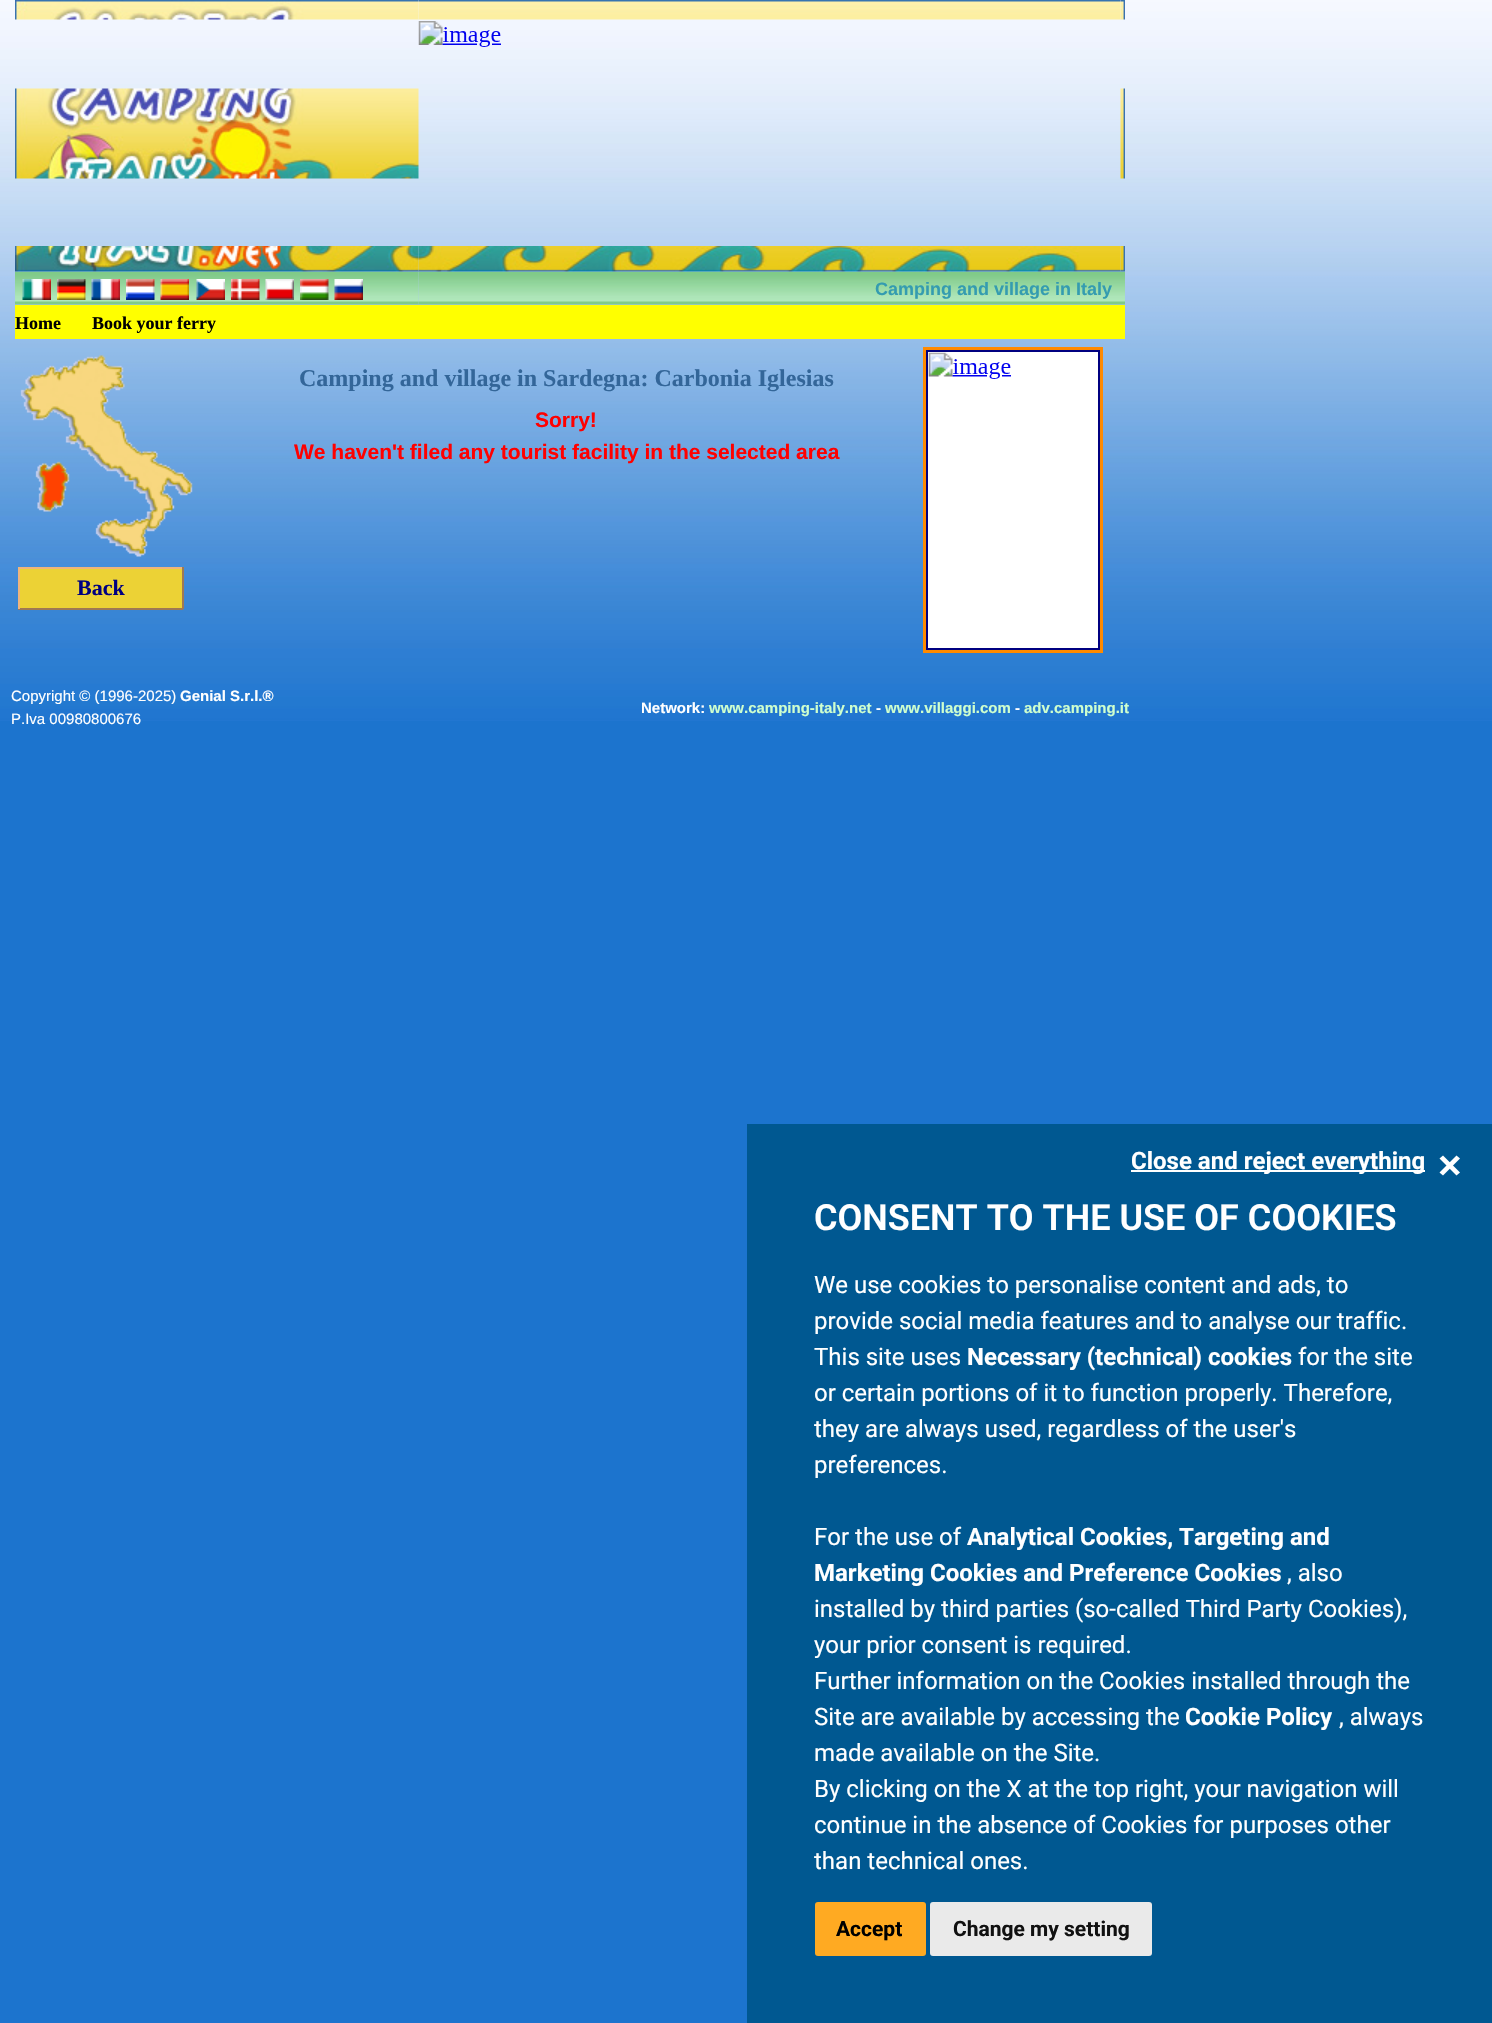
#include "include/core/SkBlurTypes.h"
#include "include/core/SkCanvas.h"
#include "include/core/SkData.h"
#include "include/core/SkFont.h"
#include "include/core/SkFontMgr.h"
#include "include/core/SkImage.h"
#include "include/core/SkMaskFilter.h"
#include "include/core/SkPaint.h"
#include "include/core/SkPathBuilder.h"
#include "include/core/SkTextBlob.h"
#include "include/effects/SkDashPathEffect.h"
#include "include/effects/SkGradientShader.h"
#include "include/utils/SkParsePath.h"

extern sk_sp<SkFontMgr> fontMgr;

static SkFont font(const char* family, int weight, float size, bool italic = false) {
    SkFontStyle style(weight, SkFontStyle::kNormal_Width,
        italic ? SkFontStyle::kItalic_Slant : SkFontStyle::kUpright_Slant);
    SkFont result(fontMgr->matchFamilyStyle(family, style), size);
    result.setSubpixel(true);
    return result;
}

static void drawLabel(SkCanvas* canvas, const char* s, float x, float y, const SkFont& font, SkColor color) {
    SkPaint ink(SkColor4f::FromColor(color));
    ink.setAntiAlias(true);
    canvas->drawString(s, x, y, font, ink);
}

static void fillRect(SkCanvas* canvas, float x, float y, float w, float h, SkColor color) {
    SkPaint ink(SkColor4f::FromColor(color));
    ink.setAntiAlias(true);
    canvas->drawRect(SkRect::MakeXYWH(x, y, w, h), ink);
}

static void fillRRect(SkCanvas* canvas, float x, float y, float w, float h, float radius, SkColor color) {
    SkPaint ink(SkColor4f::FromColor(color));
    ink.setAntiAlias(true);
    canvas->drawRoundRect(SkRect::MakeXYWH(x, y, w, h), radius, radius, ink);
}

static void drawPhoto(SkCanvas* canvas, const char* path, float x, float y, float w, float h) {
    auto image = SkImages::DeferredFromEncodedData(SkData::MakeFromFileName(path));
    canvas->drawImageRect(image, SkRect::MakeXYWH(x, y, w, h), SkSamplingOptions());
}

static SkPath parsePath(const char* data, bool evenOdd = false) {
    SkPath result = *SkParsePath::FromSVGString(data);
    if (evenOdd) result.setFillType(SkPathFillType::kEvenOdd);
    return result;
}

void draw(SkCanvas* canvas) {
    SkPaint paint;
    paint.setAntiAlias(true);
    canvas->clear(0xFF1C74CE);
    drawPhoto(canvas, "assets/img1.png", 0, 0, 1492, 721);
    drawPhoto(canvas, "assets/img2.png", 15, 0, 404, 20);
    drawPhoto(canvas, "assets/img3.png", 418, 0, 703, 20);
    drawPhoto(canvas, "assets/img4.png", 1120, 0, 5, 20);
    drawPhoto(canvas, "assets/img5.png", 418, 21, 83, 26);
    drawPhoto(canvas, "assets/img6.png", 15, 88, 404, 91);
    drawPhoto(canvas, "assets/img7.png", 1120, 88, 5, 91);
    drawPhoto(canvas, "assets/img11.png", 15, 271, 404, 34);
    drawPhoto(canvas, "assets/img22.png", 418, 271, 707, 34);
    drawPhoto(canvas, "assets/img8.png", 15, 246, 404, 26);
    drawPhoto(canvas, "assets/img9.png", 418, 246, 703, 26);
    drawPhoto(canvas, "assets/img10.png", 1120, 246, 5, 26);
    drawPhoto(canvas, "assets/img12.png", 22, 279, 29, 21);
    drawPhoto(canvas, "assets/img13.png", 57, 279, 29, 21);
    drawPhoto(canvas, "assets/img14.png", 91, 279, 29, 21);
    drawPhoto(canvas, "assets/img15.png", 126, 279, 29, 21);
    drawPhoto(canvas, "assets/img16.png", 160, 279, 29, 21);
    drawPhoto(canvas, "assets/img17.png", 196, 279, 29, 21);
    drawPhoto(canvas, "assets/img18.png", 231, 279, 29, 21);
    drawPhoto(canvas, "assets/img19.png", 265, 279, 29, 21);
    drawPhoto(canvas, "assets/img20.png", 300, 279, 29, 21);
    drawPhoto(canvas, "assets/img21.png", 334, 279, 29, 21);
    SkFont font1 = font("Liberation Sans", 700, 18);
    drawLabel(canvas, "Camping and village in Italy", 875, 295, font1, 0xFF349CB0);
    fillRect(canvas, 15, 305, 1110, 34, 0xFFFFFF00);
    SkFont font2 = font("Liberation Serif", 700, 18);
    drawLabel(canvas, "Home", 15, 329, font2, 0xFF000000);
    drawLabel(canvas, "Book your ferry", 92, 329, font2, 0xFF000000);
    SkFont font3 = font("Liberation Serif", 700, 24);
    drawLabel(canvas, "Camping and village in Sardegna: Carbonia Iglesias", 299, 386, font3, 0xFF336699);
    SkFont font4 = font("Liberation Sans", 700, 21);
    drawLabel(canvas, "Sorry!", 535, 427, font4, 0xFFFF0000);
    drawLabel(canvas, "We haven't filed any tourist facility in the selected area", 294, 459, font4, 0xFFFF0000);
    fillRect(canvas, 923, 347, 180, 306, 0xFFFF8A00);
    paint.setColor(0xFFFFFFFF);
    canvas->drawRect(SkRect::MakeXYWH(927, 351, 172, 298), paint);
    paint.setStroke(true);
    paint.setStrokeWidth(2);
    paint.setColor(0xFF000080);
    canvas->drawRect(SkRect::MakeXYWH(927, 351, 172, 298), paint);
    drawPhoto(canvas, "assets/img23.png", 928, 352, 83, 27);
    drawPhoto(canvas, "assets/img24.png", 20, 355, 173, 202);
    fillRect(canvas, 20, 569, 162, 39, 0xFFECD235);
    fillRect(canvas, 18, 567, 165, 2, 0xFFEFB57C);
    fillRect(canvas, 182, 567, 2, 42, 0xFF9F7953);
    fillRect(canvas, 18, 608, 165, 2, 0xFF9F7953);
    fillRect(canvas, 18, 567, 2, 42, 0xFFEFB57C);
    SkFont font5 = font("Liberation Serif", 700, 22);
    drawLabel(canvas, "Back", 77, 595, font5, 0xFF000080);
    SkFont font6 = font("Liberation Sans", 400, 15);
    drawLabel(canvas, "Copyright © (1996-2025)", 11, 701, font6, 0xFFFFFFFF);
    SkFont font7 = font("Liberation Sans", 700, 15);
    drawLabel(canvas, "Genial S.r.l.®", 180, 701, font7, 0xFFFFFFFF);
    drawLabel(canvas, "P.Iva 00980800676", 11, 724, font6, 0xFFFFFFFF);
    drawLabel(canvas, "Network:", 641, 713, font7, 0xFFFFFFFF);
    drawLabel(canvas, "www.camping-italy.net", 709, 713, font7, 0xFFCEFFCE);
    drawLabel(canvas, "-", 876, 713, font7, 0xFFFFFFFF);
    drawLabel(canvas, "www.villaggi.com", 885, 713, font7, 0xFFCEFFCE);
    drawLabel(canvas, "-", 1015, 713, font7, 0xFFFFFFFF);
    drawLabel(canvas, "adv.camping.it", 1024, 713, font7, 0xFFCEFFCE);
    fillRect(canvas, 747, 1124, 745, 899, 0xFF005891);
    fillRect(canvas, 1131, 1170, 294, 2, 0xFFFFFFFF);
    SkFont font8 = font("Roboto", 700, 24);
    drawLabel(canvas, "Close and reject everything", 1131, 1169, font8, 0xFFFFFFFF);
    paint.setStroke(false);
    paint.setColor(0xFFFFFFFF);
    canvas->drawPath(parsePath("M1456.5 1155.5L1460 1158.5L1443 1175.5L1439.5 1172.5Z"), paint);
    canvas->drawPath(parsePath("M1439.5 1158.5L1443 1155.5L1460 1172.5L1456.5 1175.5Z"), paint);
    SkFont font9 = font("Roboto", 600, 36);
    drawLabel(canvas, "CONSENT TO THE USE OF COOKIES", 814, 1230, font9, 0xFFFFFFFF);
    SkFont font10 = font("Roboto", 400, 24);
    drawLabel(canvas, "We use cookies to personalise content and ads, to", 814, 1293, font10, 0xFFFFFFFF);
    drawLabel(canvas, "provide social media features and to analyse our traffic.", 814, 1329, font10, 0xFFFFFFFF);
    drawLabel(canvas, "This site uses", 814, 1365, font10, 0xFFFFFFFF);
    drawLabel(canvas, "Necessary (technical) cookies", 967, 1365, font8, 0xFFFFFFFF);
    drawLabel(canvas, "for the site", 1298, 1365, font10, 0xFFFFFFFF);
    drawLabel(canvas, "or certain portions of it to function properly. Therefore,", 814, 1401, font10, 0xFFFFFFFF);
    drawLabel(canvas, "they are always used, regardless of the user's", 814, 1437, font10, 0xFFFFFFFF);
    drawLabel(canvas, "preferences.", 814, 1473, font10, 0xFFFFFFFF);
    drawLabel(canvas, "For the use of", 814, 1545, font10, 0xFFFFFFFF);
    drawLabel(canvas, "Analytical Cookies, Targeting and", 967, 1545, font8, 0xFFFFFFFF);
    drawLabel(canvas, "Marketing Cookies and Preference Cookies", 814, 1581, font8, 0xFFFFFFFF);
    drawLabel(canvas, ", also", 1287, 1581, font10, 0xFFFFFFFF);
    drawLabel(canvas, "installed by third parties (so-called Third Party Cookies),", 814, 1617, font10, 0xFFFFFFFF);
    drawLabel(canvas, "your prior consent is required.", 814, 1653, font10, 0xFFFFFFFF);
    drawLabel(canvas, "Further information on the Cookies installed through the", 814, 1689, font10, 0xFFFFFFFF);
    drawLabel(canvas, "Site are available by accessing the", 814, 1725, font10, 0xFFFFFFFF);
    drawLabel(canvas, "Cookie Policy", 1185, 1725, font8, 0xFFFFFFFF);
    drawLabel(canvas, ", always", 1339, 1725, font10, 0xFFFFFFFF);
    drawLabel(canvas, "made available on the Site.", 814, 1761, font10, 0xFFFFFFFF);
    drawLabel(canvas, "By clicking on the X at the top right, your navigation will", 814, 1797, font10, 0xFFFFFFFF);
    drawLabel(canvas, "continue in the absence of Cookies for purposes other", 814, 1833, font10, 0xFFFFFFFF);
    drawLabel(canvas, "than technical ones.", 814, 1869, font10, 0xFFFFFFFF);
    fillRRect(canvas, 815, 1902, 111, 54, 3, 0xFFFFAA22);
    SkFont font11 = font("Roboto", 700, 21);
    drawLabel(canvas, "Accept", 836, 1936, font11, 0xFF000000);
    fillRRect(canvas, 930, 1902, 222, 54, 3, 0xFFEAEAEA);
    drawLabel(canvas, "Change my setting", 953, 1936, font11, 0xFF111111);
}
